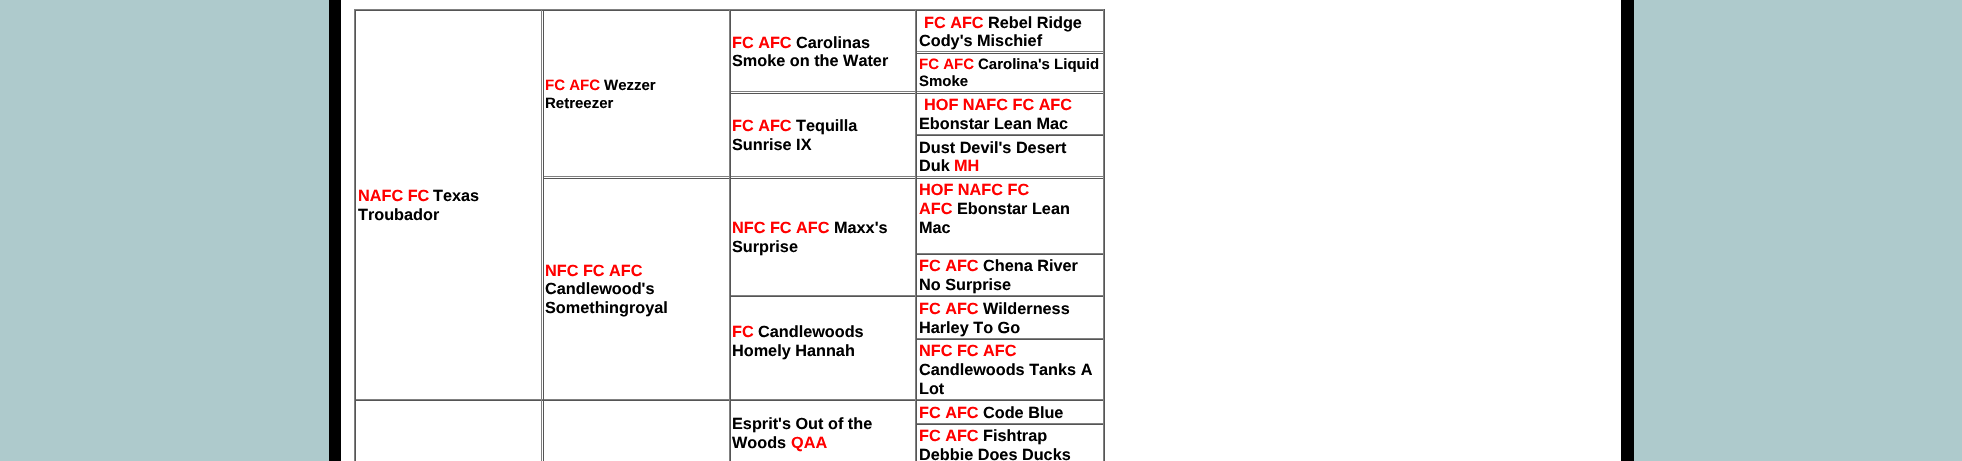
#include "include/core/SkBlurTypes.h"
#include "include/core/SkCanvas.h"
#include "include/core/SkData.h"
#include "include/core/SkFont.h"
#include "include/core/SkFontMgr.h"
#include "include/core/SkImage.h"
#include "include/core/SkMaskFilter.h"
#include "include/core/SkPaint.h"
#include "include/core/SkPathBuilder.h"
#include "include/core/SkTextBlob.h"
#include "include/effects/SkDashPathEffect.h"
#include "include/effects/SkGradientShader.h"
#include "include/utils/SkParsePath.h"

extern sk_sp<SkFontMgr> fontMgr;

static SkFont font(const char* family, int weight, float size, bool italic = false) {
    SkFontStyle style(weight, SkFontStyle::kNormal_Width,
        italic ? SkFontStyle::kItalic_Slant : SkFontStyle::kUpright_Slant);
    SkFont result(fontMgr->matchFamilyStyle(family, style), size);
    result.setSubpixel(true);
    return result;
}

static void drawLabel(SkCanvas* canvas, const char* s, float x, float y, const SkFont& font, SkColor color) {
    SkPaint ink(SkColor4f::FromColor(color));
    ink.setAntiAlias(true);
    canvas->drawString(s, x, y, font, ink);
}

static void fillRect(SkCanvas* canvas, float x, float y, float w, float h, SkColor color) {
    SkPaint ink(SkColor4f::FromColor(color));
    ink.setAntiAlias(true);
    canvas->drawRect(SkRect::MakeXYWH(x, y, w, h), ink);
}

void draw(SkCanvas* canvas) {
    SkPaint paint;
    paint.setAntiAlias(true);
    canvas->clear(0xFFAECACC);
    fillRect(canvas, 329, 0, 1305, 461, 0xFF000000);
    fillRect(canvas, 341, 0, 1280, 461, 0xFFFFFFFF);
    fillRect(canvas, 354, 9, 751, 1, 0xFF808080);
    fillRect(canvas, 1104, 9, 1, 452, 0xFF555555);
    fillRect(canvas, 354, 9, 1, 452, 0xFF808080);
    fillRect(canvas, 355, 10, 749, 1, 0xFF555555);
    fillRect(canvas, 915, 10, 1, 83, 0xFF808080);
    fillRect(canvas, 730, 91, 186, 1, 0xFF808080);
    fillRect(canvas, 730, 10, 1, 83, 0xFF555555);
    SkFont font1 = font("Liberation Sans", 700, 16.25f);
    drawLabel(canvas, "FC AFC", 732, 48, font1, 0xFFFF0000);
    drawLabel(canvas, "Carolinas", 796, 48, font1, 0xFF000000);
    drawLabel(canvas, "Smoke on the Water", 732, 66, font1, 0xFF000000);
    fillRect(canvas, 1103, 10, 1, 43, 0xFF808080);
    fillRect(canvas, 916, 51, 188, 1, 0xFF808080);
    fillRect(canvas, 916, 10, 1, 43, 0xFF555555);
    drawLabel(canvas, "FC AFC", 924, 28, font1, 0xFFFF0000);
    drawLabel(canvas, "Rebel Ridge", 988, 28, font1, 0xFF000000);
    drawLabel(canvas, "Cody's Mischief", 919, 46, font1, 0xFF000000);
    fillRect(canvas, 729, 10, 1, 168, 0xFF808080);
    fillRect(canvas, 543, 176, 187, 1, 0xFF808080);
    fillRect(canvas, 543, 10, 1, 168, 0xFF555555);
    SkFont font2 = font("Liberation Sans", 700, 15);
    drawLabel(canvas, "FC AFC", 545, 90, font2, 0xFFFF0000);
    drawLabel(canvas, "Wezzer", 604, 90, font2, 0xFF000000);
    drawLabel(canvas, "Retreezer", 545, 108, font2, 0xFF000000);
    fillRect(canvas, 541, 10, 1, 390, 0xFF808080);
    fillRect(canvas, 355, 399, 188, 1, 0xFF808080);
    fillRect(canvas, 355, 10, 1, 390, 0xFF555555);
    drawLabel(canvas, "NAFC FC", 358, 201, font1, 0xFFFF0000);
    drawLabel(canvas, "Texas", 433, 201, font1, 0xFF000000);
    drawLabel(canvas, "Troubador", 358, 220, font1, 0xFF000000);
    fillRect(canvas, 916, 53, 188, 1, 0xFF555555);
    fillRect(canvas, 1103, 53, 1, 40, 0xFF808080);
    fillRect(canvas, 916, 91, 188, 1, 0xFF808080);
    fillRect(canvas, 916, 53, 1, 40, 0xFF555555);
    drawLabel(canvas, "FC AFC", 919, 69, font2, 0xFFFF0000);
    drawLabel(canvas, "Carolina's Liquid", 978, 69, font2, 0xFF000000);
    drawLabel(canvas, "Smoke", 919, 86, font2, 0xFF000000);
    fillRect(canvas, 730, 93, 374, 1, 0xFF555555);
    fillRect(canvas, 1103, 93, 1, 42, 0xFF808080);
    fillRect(canvas, 916, 134, 188, 1, 0xFF808080);
    fillRect(canvas, 916, 93, 1, 42, 0xFF555555);
    drawLabel(canvas, "HOF NAFC FC AFC", 924, 110, font1, 0xFFFF0000);
    drawLabel(canvas, "Ebonstar Lean Mac", 919, 129, font1, 0xFF000000);
    fillRect(canvas, 915, 93, 1, 85, 0xFF808080);
    fillRect(canvas, 730, 176, 186, 1, 0xFF808080);
    fillRect(canvas, 730, 93, 1, 85, 0xFF555555);
    drawLabel(canvas, "FC AFC", 732, 131, font1, 0xFFFF0000);
    drawLabel(canvas, "Tequilla", 796, 131, font1, 0xFF000000);
    drawLabel(canvas, "Sunrise IX", 732, 150, font1, 0xFF000000);
    fillRect(canvas, 916, 135, 188, 1, 0xFF555555);
    fillRect(canvas, 1103, 135, 1, 43, 0xFF808080);
    fillRect(canvas, 916, 176, 188, 1, 0xFF808080);
    fillRect(canvas, 916, 135, 1, 43, 0xFF555555);
    drawLabel(canvas, "Dust Devil's Desert", 919, 153, font1, 0xFF000000);
    drawLabel(canvas, "Duk", 919, 171, font1, 0xFF000000);
    drawLabel(canvas, "MH", 954, 171, font1, 0xFFFF0000);
    fillRect(canvas, 543, 178, 561, 1, 0xFF555555);
    fillRect(canvas, 1103, 178, 1, 76, 0xFF808080);
    fillRect(canvas, 916, 253, 188, 1, 0xFF808080);
    fillRect(canvas, 916, 178, 1, 76, 0xFF555555);
    drawLabel(canvas, "HOF NAFC FC", 919, 195, font1, 0xFFFF0000);
    drawLabel(canvas, "AFC", 919, 214, font1, 0xFFFF0000);
    drawLabel(canvas, "Ebonstar Lean", 957, 214, font1, 0xFF000000);
    drawLabel(canvas, "Mac", 919, 233, font1, 0xFF000000);
    fillRect(canvas, 915, 178, 1, 118, 0xFF808080);
    fillRect(canvas, 730, 295, 186, 1, 0xFF808080);
    fillRect(canvas, 730, 178, 1, 118, 0xFF555555);
    drawLabel(canvas, "NFC FC AFC", 732, 233, font1, 0xFFFF0000);
    drawLabel(canvas, "Maxx's", 834, 233, font1, 0xFF000000);
    drawLabel(canvas, "Surprise", 732, 252, font1, 0xFF000000);
    fillRect(canvas, 729, 178, 1, 222, 0xFF808080);
    fillRect(canvas, 543, 399, 187, 1, 0xFF808080);
    fillRect(canvas, 543, 178, 1, 222, 0xFF555555);
    drawLabel(canvas, "NFC FC AFC", 545, 276, font1, 0xFFFF0000);
    drawLabel(canvas, "Candlewood's", 545, 294, font1, 0xFF000000);
    drawLabel(canvas, "Somethingroyal", 545, 313, font1, 0xFF000000);
    fillRect(canvas, 916, 254, 188, 1, 0xFF555555);
    fillRect(canvas, 1103, 254, 1, 42, 0xFF808080);
    fillRect(canvas, 916, 295, 188, 1, 0xFF808080);
    fillRect(canvas, 916, 254, 1, 42, 0xFF555555);
    drawLabel(canvas, "FC AFC", 919, 271, font1, 0xFFFF0000);
    drawLabel(canvas, "Chena River", 983, 271, font1, 0xFF000000);
    drawLabel(canvas, "No Surprise", 919, 290, font1, 0xFF000000);
    fillRect(canvas, 730, 296, 374, 1, 0xFF555555);
    fillRect(canvas, 1103, 296, 1, 43, 0xFF808080);
    fillRect(canvas, 916, 338, 188, 1, 0xFF808080);
    fillRect(canvas, 916, 296, 1, 43, 0xFF555555);
    drawLabel(canvas, "FC AFC", 919, 314, font1, 0xFFFF0000);
    drawLabel(canvas, "Wilderness", 983, 314, font1, 0xFF000000);
    drawLabel(canvas, "Harley To Go", 919, 333, font1, 0xFF000000);
    fillRect(canvas, 915, 296, 1, 104, 0xFF808080);
    fillRect(canvas, 730, 399, 186, 1, 0xFF808080);
    fillRect(canvas, 730, 296, 1, 104, 0xFF555555);
    drawLabel(canvas, "FC", 732, 337, font1, 0xFFFF0000);
    drawLabel(canvas, "Candlewoods", 758, 337, font1, 0xFF000000);
    drawLabel(canvas, "Homely Hannah", 732, 356, font1, 0xFF000000);
    fillRect(canvas, 916, 339, 188, 1, 0xFF555555);
    fillRect(canvas, 1103, 339, 1, 61, 0xFF808080);
    fillRect(canvas, 916, 399, 188, 1, 0xFF808080);
    fillRect(canvas, 916, 339, 1, 61, 0xFF555555);
    drawLabel(canvas, "NFC FC AFC", 919, 356, font1, 0xFFFF0000);
    drawLabel(canvas, "Candlewoods Tanks A", 919, 375, font1, 0xFF000000);
    drawLabel(canvas, "Lot", 919, 394, font1, 0xFF000000);
    fillRect(canvas, 355, 400, 749, 1, 0xFF555555);
    fillRect(canvas, 541, 400, 1, 61, 0xFF808080);
    fillRect(canvas, 355, 400, 1, 61, 0xFF555555);
    fillRect(canvas, 729, 400, 1, 61, 0xFF808080);
    fillRect(canvas, 543, 400, 1, 61, 0xFF555555);
    fillRect(canvas, 1103, 400, 1, 24, 0xFF808080);
    fillRect(canvas, 916, 423, 188, 1, 0xFF808080);
    fillRect(canvas, 916, 400, 1, 24, 0xFF555555);
    drawLabel(canvas, "FC AFC", 919, 418, font1, 0xFFFF0000);
    drawLabel(canvas, "Code Blue", 983, 418, font1, 0xFF000000);
    fillRect(canvas, 915, 400, 1, 61, 0xFF808080);
    fillRect(canvas, 730, 400, 1, 61, 0xFF555555);
    drawLabel(canvas, "Esprit's Out of the", 732, 429, font1, 0xFF000000);
    drawLabel(canvas, "Woods", 732, 448, font1, 0xFF000000);
    drawLabel(canvas, "QAA", 791, 448, font1, 0xFFFF0000);
    fillRect(canvas, 916, 424, 188, 1, 0xFF555555);
    fillRect(canvas, 1103, 424, 1, 37, 0xFF808080);
    fillRect(canvas, 916, 424, 1, 37, 0xFF555555);
    drawLabel(canvas, "FC AFC", 919, 441, font1, 0xFFFF0000);
    drawLabel(canvas, "Fishtrap", 983, 441, font1, 0xFF000000);
    drawLabel(canvas, "Debbie Does Ducks", 919, 460, font1, 0xFF000000);
}
